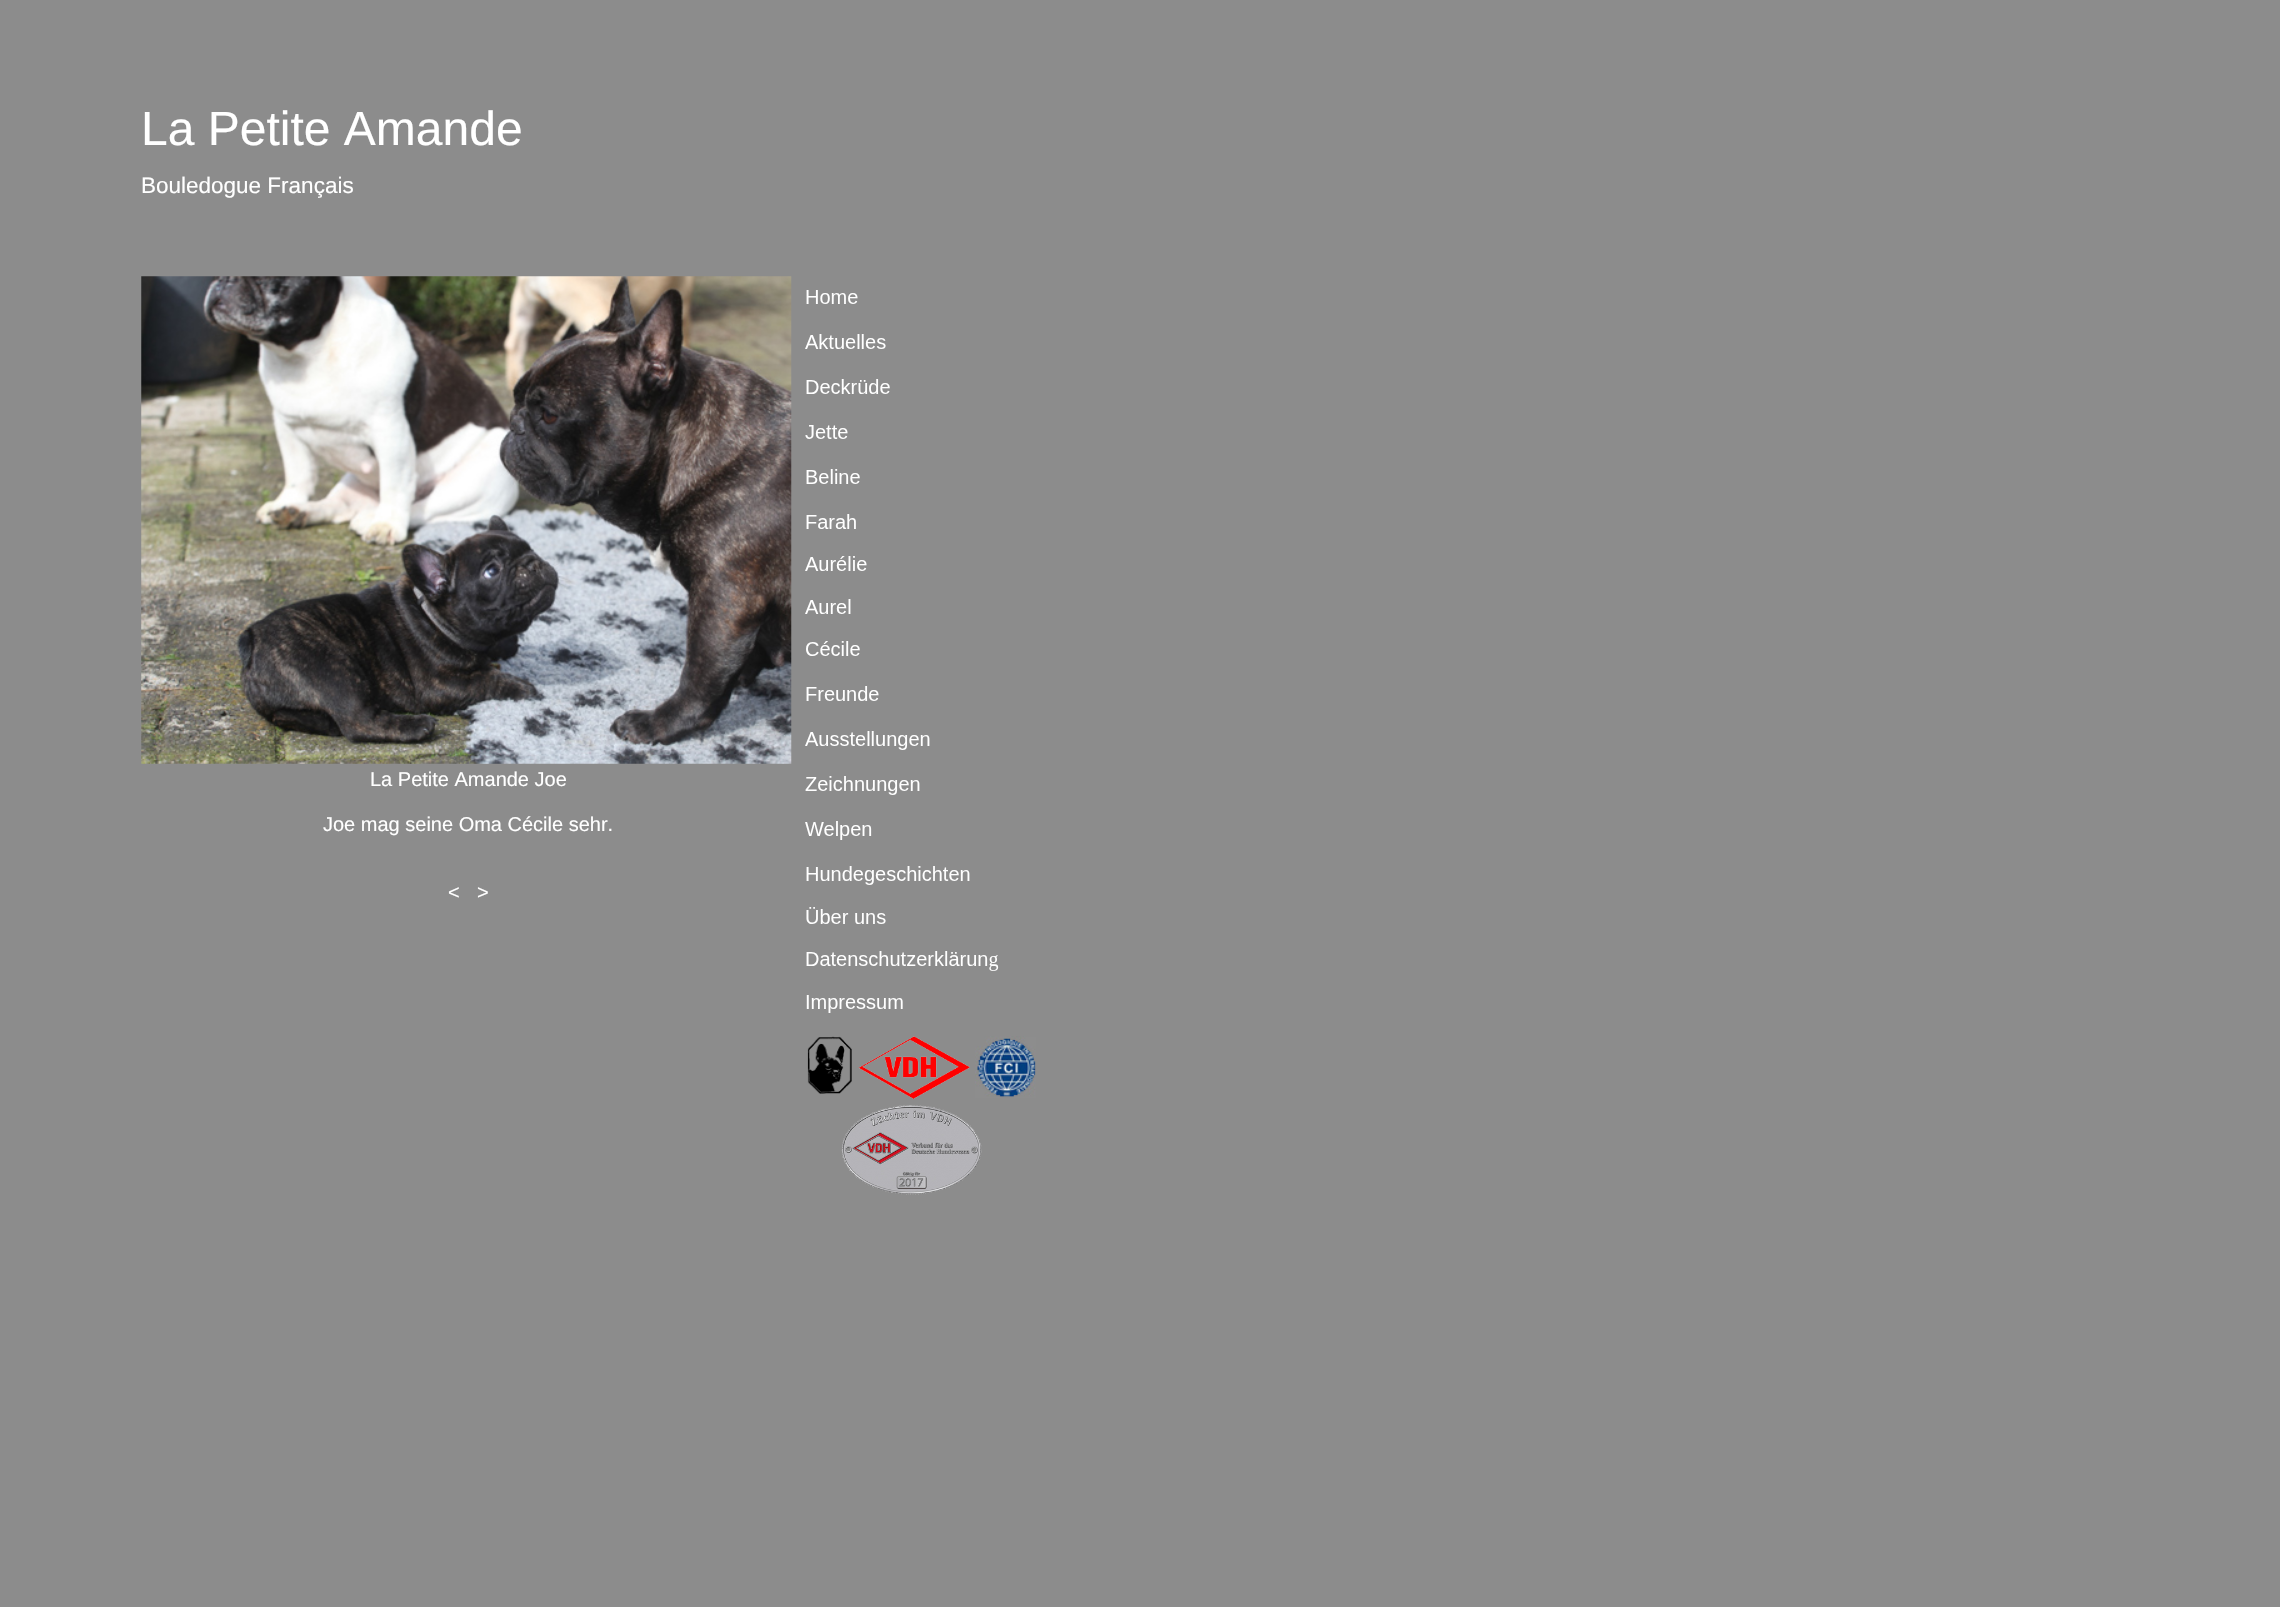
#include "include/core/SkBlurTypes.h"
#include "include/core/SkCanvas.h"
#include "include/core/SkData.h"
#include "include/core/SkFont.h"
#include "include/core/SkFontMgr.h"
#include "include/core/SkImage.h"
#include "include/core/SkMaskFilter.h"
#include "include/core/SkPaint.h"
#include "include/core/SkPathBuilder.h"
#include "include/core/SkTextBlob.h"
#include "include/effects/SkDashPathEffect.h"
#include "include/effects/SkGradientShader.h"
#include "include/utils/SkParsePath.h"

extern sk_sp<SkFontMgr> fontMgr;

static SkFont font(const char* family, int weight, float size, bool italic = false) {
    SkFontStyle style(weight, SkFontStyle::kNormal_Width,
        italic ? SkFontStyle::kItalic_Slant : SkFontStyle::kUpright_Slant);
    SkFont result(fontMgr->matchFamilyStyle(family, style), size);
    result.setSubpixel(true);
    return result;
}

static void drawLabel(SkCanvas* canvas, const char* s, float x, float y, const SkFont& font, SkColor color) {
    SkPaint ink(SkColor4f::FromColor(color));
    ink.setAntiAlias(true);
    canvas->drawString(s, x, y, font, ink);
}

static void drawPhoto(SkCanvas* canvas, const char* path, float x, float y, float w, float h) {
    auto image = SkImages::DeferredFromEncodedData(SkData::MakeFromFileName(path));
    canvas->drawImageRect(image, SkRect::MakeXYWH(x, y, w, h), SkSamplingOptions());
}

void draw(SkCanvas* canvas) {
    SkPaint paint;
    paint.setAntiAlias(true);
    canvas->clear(0xFF8C8C8C);
    SkFont font1 = font("Liberation Sans", 400, 48);
    drawLabel(canvas, "La Petite Amande", 141, 145, font1, 0xFFFFFFFF);
    SkFont font2 = font("Liberation Sans", 400, 22.5f);
    drawLabel(canvas, "Bouledogue Français", 141, 193, font2, 0xFFFFFFFF);
    drawPhoto(canvas, "assets/img1.png", 141, 276, 651, 488);
    SkFont font3 = font("Liberation Sans", 400, 20);
    drawLabel(canvas, "La Petite Amande Joe", 370, 786, font3, 0xFFFFFFFF);
    drawLabel(canvas, "Joe mag seine Oma Cécile sehr.", 323, 831, font3, 0xFFFFFFFF);
    drawLabel(canvas, "<", 448, 899, font3, 0xFFFFFFFF);
    drawLabel(canvas, ">", 477, 899, font3, 0xFFFFFFFF);
    drawPhoto(canvas, "assets/img2.png", 805, 290, 231, 905);
}
